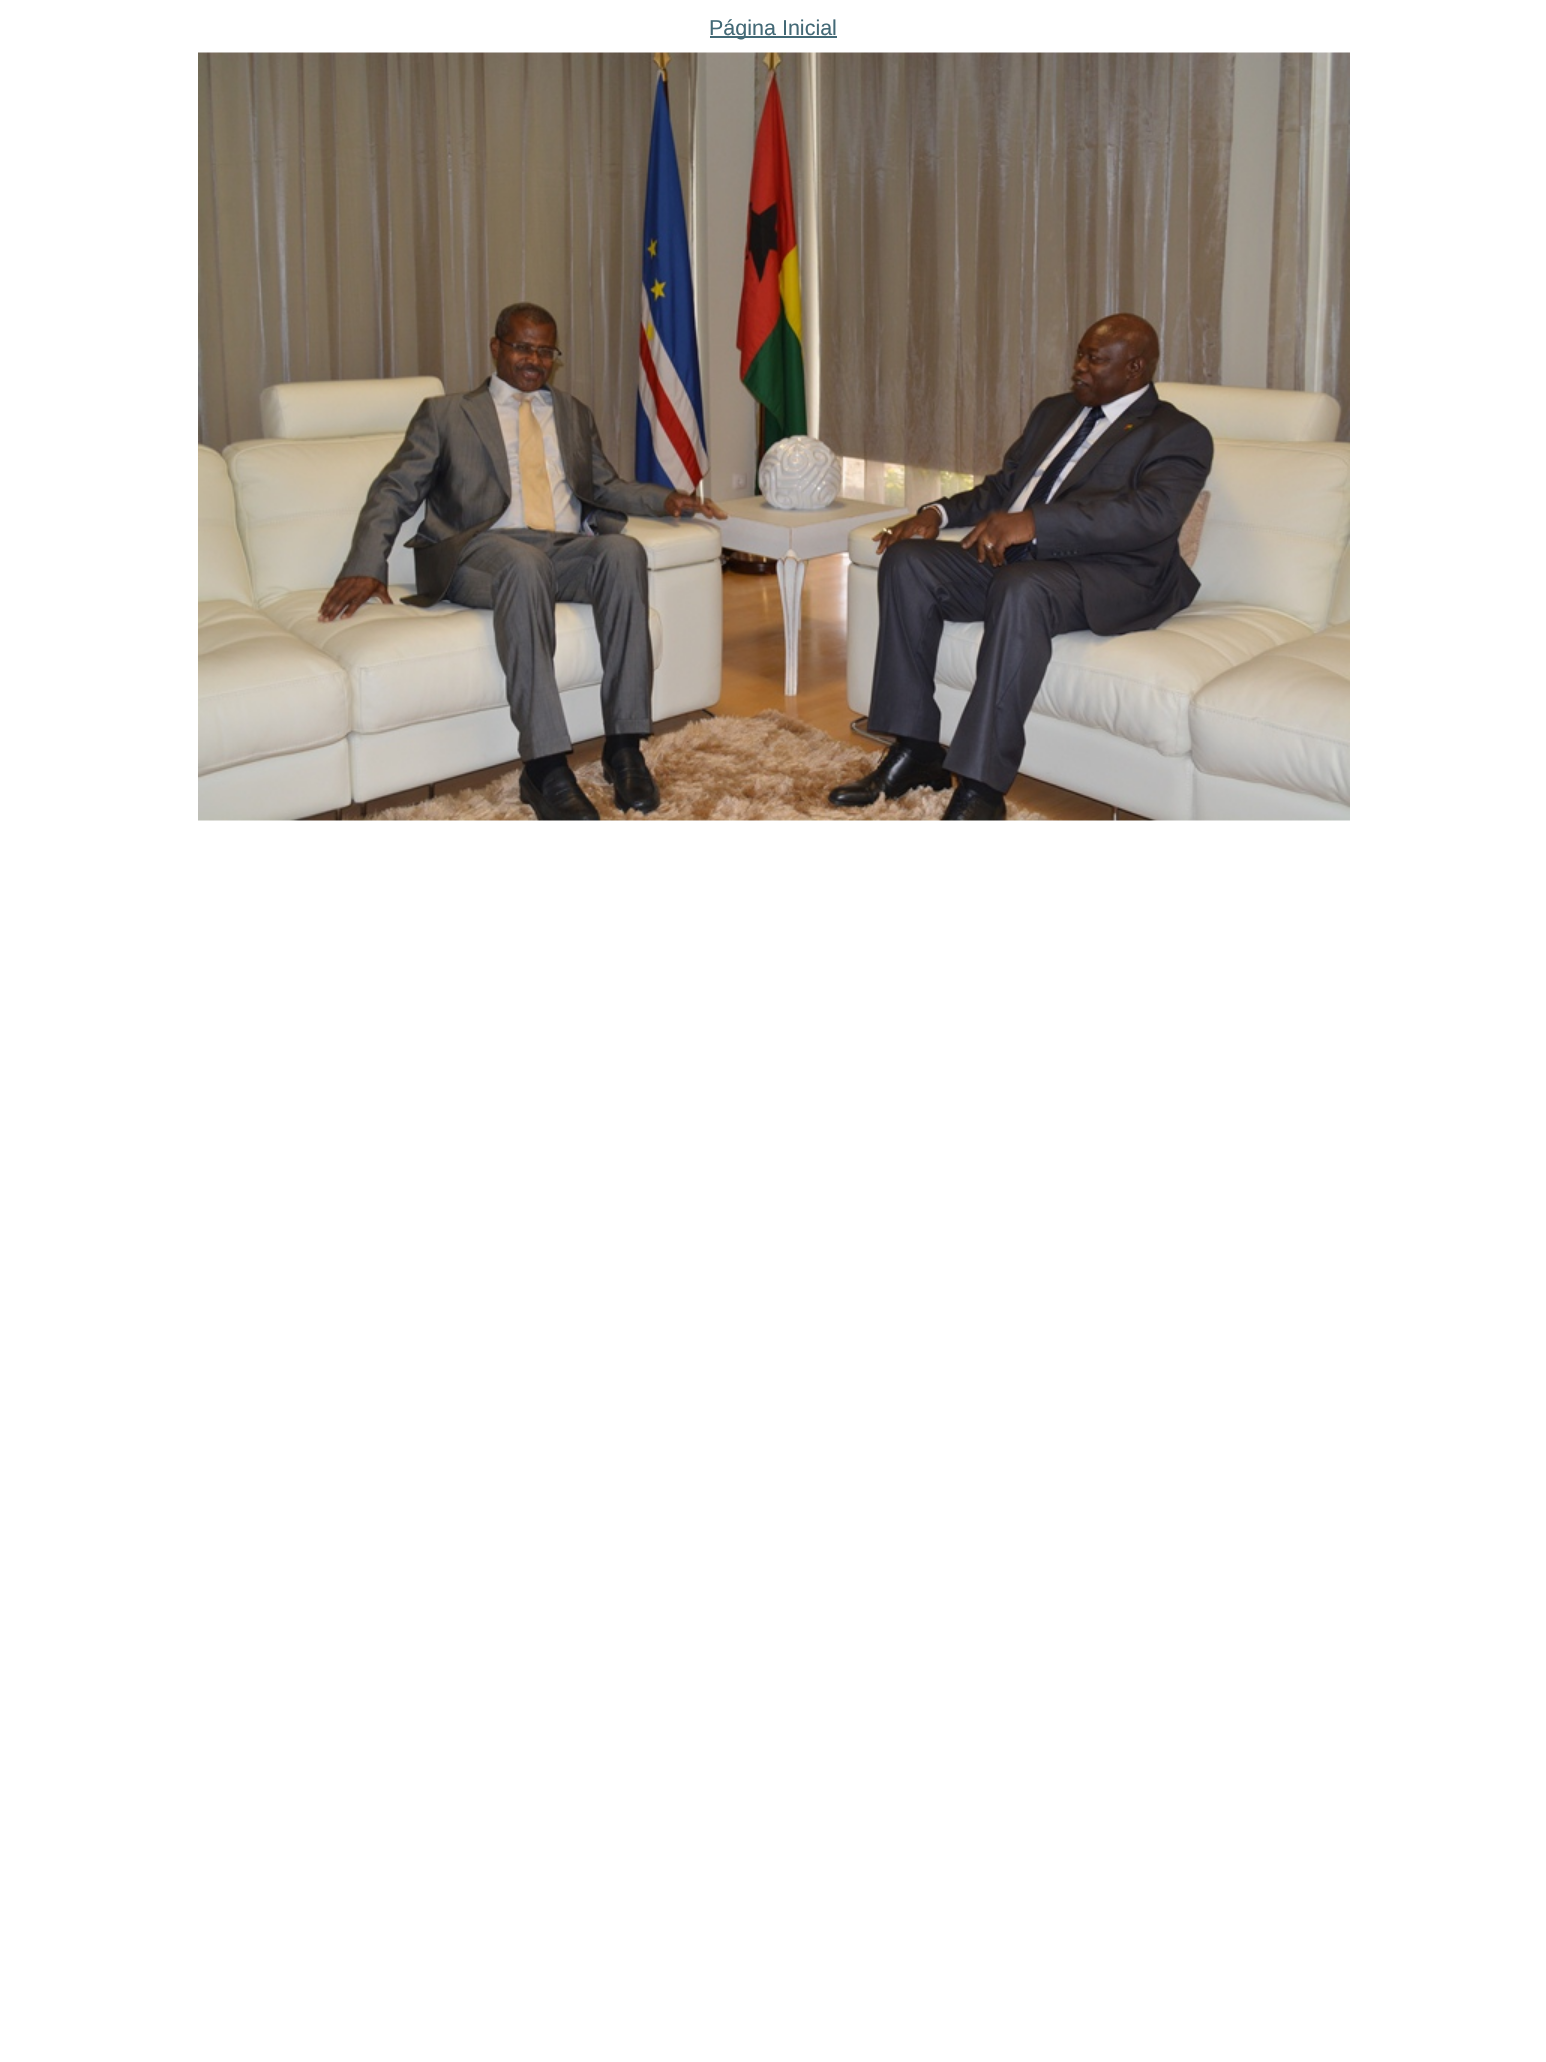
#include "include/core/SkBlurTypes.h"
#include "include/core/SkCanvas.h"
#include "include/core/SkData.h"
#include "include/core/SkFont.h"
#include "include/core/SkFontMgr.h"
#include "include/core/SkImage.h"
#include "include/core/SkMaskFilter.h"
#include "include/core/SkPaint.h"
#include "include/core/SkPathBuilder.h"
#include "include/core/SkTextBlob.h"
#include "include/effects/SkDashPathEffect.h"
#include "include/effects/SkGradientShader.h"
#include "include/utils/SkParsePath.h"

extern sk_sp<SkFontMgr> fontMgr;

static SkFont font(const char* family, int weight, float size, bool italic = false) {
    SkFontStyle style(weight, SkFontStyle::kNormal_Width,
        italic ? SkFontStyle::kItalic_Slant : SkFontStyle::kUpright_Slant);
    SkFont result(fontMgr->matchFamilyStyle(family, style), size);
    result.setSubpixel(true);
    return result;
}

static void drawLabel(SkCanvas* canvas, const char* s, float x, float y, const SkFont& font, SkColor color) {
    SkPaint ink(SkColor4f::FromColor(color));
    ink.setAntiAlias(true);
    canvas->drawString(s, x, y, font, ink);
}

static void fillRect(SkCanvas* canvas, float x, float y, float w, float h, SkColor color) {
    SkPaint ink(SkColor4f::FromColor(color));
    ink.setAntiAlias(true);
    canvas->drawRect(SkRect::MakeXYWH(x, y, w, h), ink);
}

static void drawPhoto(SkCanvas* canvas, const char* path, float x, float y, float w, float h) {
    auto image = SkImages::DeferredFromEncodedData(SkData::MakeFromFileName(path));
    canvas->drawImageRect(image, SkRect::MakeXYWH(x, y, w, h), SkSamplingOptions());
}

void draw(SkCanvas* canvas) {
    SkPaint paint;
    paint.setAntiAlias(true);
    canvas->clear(0xFFFFFFFF);
    fillRect(canvas, 710, 36, 127, 2, 0xFF436976);
    SkFont font1 = font("Liberation Sans", 400, 21.5f);
    drawLabel(canvas, "Página Inicial", 709, 35, font1, 0xFF436976);
    drawPhoto(canvas, "assets/img1.png", 198, 52, 1152, 769);
}
